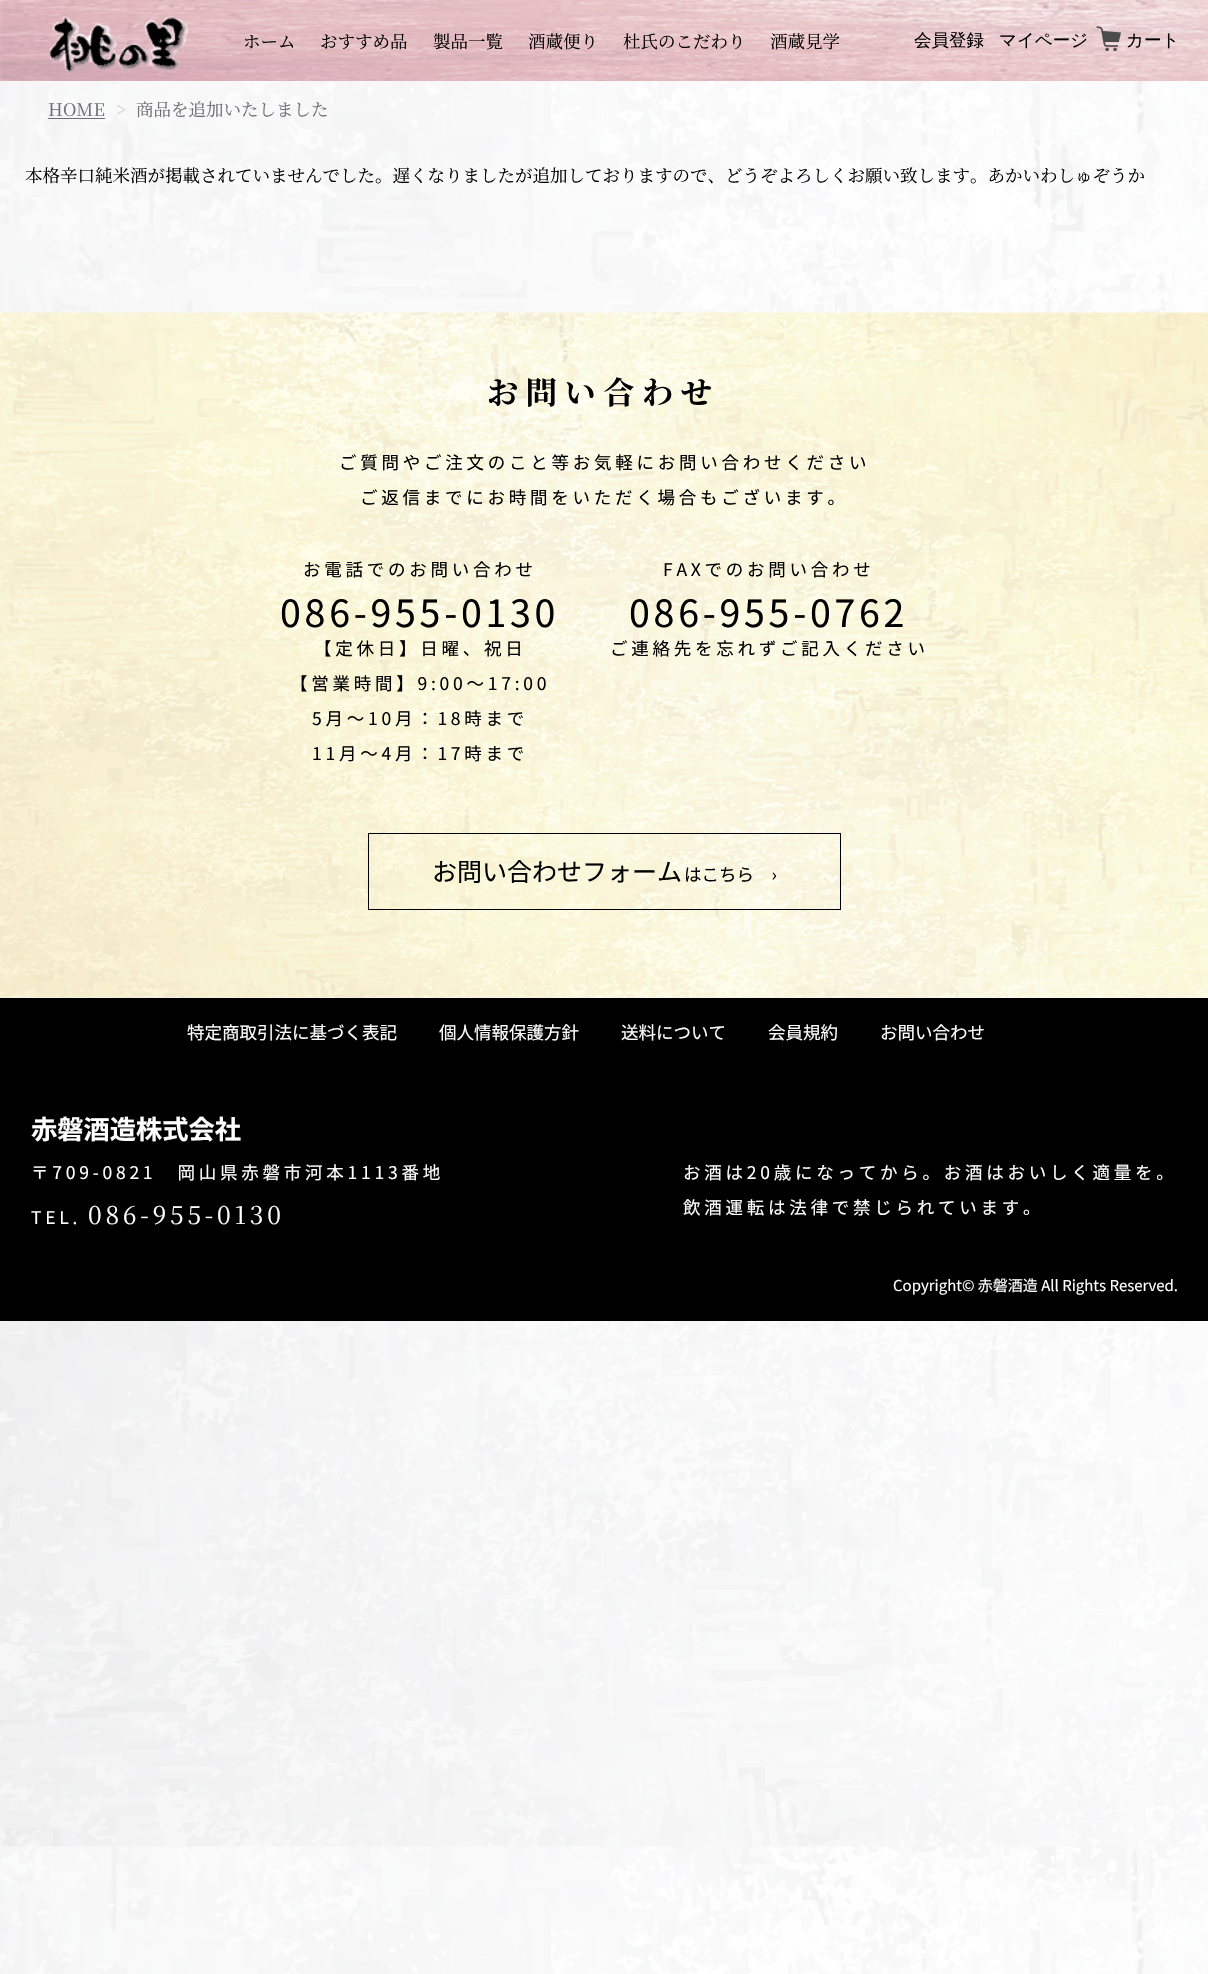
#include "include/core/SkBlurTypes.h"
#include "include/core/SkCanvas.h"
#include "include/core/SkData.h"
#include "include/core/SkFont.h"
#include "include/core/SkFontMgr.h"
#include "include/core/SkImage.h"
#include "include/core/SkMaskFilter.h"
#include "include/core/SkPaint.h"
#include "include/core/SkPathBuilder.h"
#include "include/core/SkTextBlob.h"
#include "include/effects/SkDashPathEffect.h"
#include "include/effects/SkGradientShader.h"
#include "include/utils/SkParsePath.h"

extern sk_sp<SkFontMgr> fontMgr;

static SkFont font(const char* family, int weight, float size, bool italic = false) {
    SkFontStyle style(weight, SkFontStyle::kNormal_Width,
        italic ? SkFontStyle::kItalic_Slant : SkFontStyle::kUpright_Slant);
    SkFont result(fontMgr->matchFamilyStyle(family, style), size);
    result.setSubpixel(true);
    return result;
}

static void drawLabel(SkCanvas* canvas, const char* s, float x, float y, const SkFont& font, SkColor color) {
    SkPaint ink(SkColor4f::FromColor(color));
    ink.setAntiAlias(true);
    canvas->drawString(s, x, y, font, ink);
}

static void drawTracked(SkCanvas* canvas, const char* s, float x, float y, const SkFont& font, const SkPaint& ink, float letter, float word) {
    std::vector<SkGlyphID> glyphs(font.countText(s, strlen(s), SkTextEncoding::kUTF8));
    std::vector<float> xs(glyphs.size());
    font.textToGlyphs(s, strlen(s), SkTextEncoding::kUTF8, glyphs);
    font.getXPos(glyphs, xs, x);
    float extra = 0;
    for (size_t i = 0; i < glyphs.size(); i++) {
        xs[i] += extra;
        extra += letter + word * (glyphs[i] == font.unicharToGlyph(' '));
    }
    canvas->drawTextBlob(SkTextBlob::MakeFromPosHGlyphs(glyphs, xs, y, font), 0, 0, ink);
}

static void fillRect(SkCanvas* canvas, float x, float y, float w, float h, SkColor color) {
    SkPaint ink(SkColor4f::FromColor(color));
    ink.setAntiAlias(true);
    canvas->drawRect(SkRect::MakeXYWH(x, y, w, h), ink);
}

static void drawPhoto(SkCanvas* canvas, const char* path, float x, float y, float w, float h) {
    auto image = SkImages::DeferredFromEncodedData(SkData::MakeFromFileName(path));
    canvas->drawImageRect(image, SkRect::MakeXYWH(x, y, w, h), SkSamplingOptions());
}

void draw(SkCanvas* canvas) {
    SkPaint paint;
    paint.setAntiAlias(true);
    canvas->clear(0xFFFFFFFF);
    drawPhoto(canvas, "assets/img1.png", 0, 81, 1208, 1893);
    drawPhoto(canvas, "assets/img2.png", 0, 0, 1208, 81);
    drawPhoto(canvas, "assets/img3.png", 49, 16, 140, 59);
    SkFont font1 = font("Noto Serif JP", 400, 17.5f);
    drawLabel(canvas, "ホーム", 243, 48, font1, 0xFF000000);
    drawLabel(canvas, "おすすめ品", 320, 48, font1, 0xFF000000);
    drawLabel(canvas, "製品一覧", 433, 48, font1, 0xFF000000);
    drawLabel(canvas, "酒蔵便り", 528, 48, font1, 0xFF000000);
    drawLabel(canvas, "杜氏のこだわり", 623, 48, font1, 0xFF000000);
    drawLabel(canvas, "酒蔵見学", 770, 48, font1, 0xFF000000);
    SkFont font2 = font("WenQuanYi Zen Hei", 500, 17.5f);
    drawLabel(canvas, "会員登録", 914, 46, font2, 0xFF000000);
    drawLabel(canvas, "マイページ", 999, 46, font2, 0xFF000000);
    drawPhoto(canvas, "assets/img4.png", 1096, 26, 25, 25);
    drawLabel(canvas, "カート", 1126, 46, font2, 0xFF000000);
    drawLabel(canvas, "HOME", 48, 116, font1, 0xFF6D6D72);
    fillRect(canvas, 48, 118, 57, 1, 0xFF6D6D72);
    drawLabel(canvas, ">", 116, 116, font1, 0xFFC9C9C9);
    drawLabel(canvas, "商品を追加いたしました", 136, 116, font1, 0xFF6D6D72);
    drawLabel(canvas, "本格辛口純米酒が掲載されていませんでした。遅くなりましたが追加しておりますので、どうぞよろしくお願い致します。あかいわしゅぞうか", 25, 182, font1, 0xFF000000);
    drawPhoto(canvas, "assets/img5.png", 0, 312, 1208, 686);
    SkFont font3 = font("Noto Serif JP", 700, 31.25f);
    paint.setColor(0xFF000000);
    drawTracked(canvas, "お問い合わせ", 487, 404, font3, paint, 7.5f, 0);
    SkFont font4 = font("Noto Sans JP", 400, 17.5f);
    drawTracked(canvas, "ご質問やご注文のこと等お気軽にお問い合わせください", 339, 469, font4, paint, 3.75f, 0);
    drawTracked(canvas, "ご返信までにお時間をいただく場合もございます。", 360, 504, font4, paint, 3.75f, 0);
    drawTracked(canvas, "お電話でのお問い合わせ", 303, 576, font4, paint, 3.75f, 0);
    SkFont font5 = font("Noto Sans JP", 400, 37.5f);
    drawTracked(canvas, "086-955-0130", 280, 627, font5, paint, 3.75f, 0);
    drawTracked(canvas, "【定休日】日曜、祝日", 314, 655, font4, paint, 3.75f, 0);
    drawTracked(canvas, "【営業時間】9:00〜17:00", 290, 690, font4, paint, 3.75f, 0);
    drawTracked(canvas, "5月〜10月：18時まで", 312, 725, font4, paint, 3.75f, 0);
    drawTracked(canvas, "11月〜4月：17時まで", 312, 760, font4, paint, 3.75f, 0);
    drawTracked(canvas, "FAXでのお問い合わせ", 663, 576, font4, paint, 3.75f, 0);
    drawTracked(canvas, "086-955-0762", 629, 627, font5, paint, 3.75f, 0);
    drawTracked(canvas, "ご連絡先を忘れずご記入ください", 610, 655, font4, paint, 3.75f, 0);
    paint.setStroke(true);
    paint.setStrokeWidth(1);
    canvas->drawRect(SkRect::MakeXYWH(368.5f, 833.5f, 472, 76), paint);
    SkFont font6 = font("Noto Sans JP", 400, 25);
    drawLabel(canvas, "お問い合わせフォーム", 432, 881, font6, 0xFF000000);
    drawLabel(canvas, "はこちら　›", 684, 881, font4, 0xFF000000);
    fillRect(canvas, 0, 998, 1208, 323, 0xFF000000);
    drawLabel(canvas, "特定商取引法に基づく表記", 187, 1039, font4, 0xFFFFFFFF);
    drawLabel(canvas, "個人情報保護方針", 439, 1039, font4, 0xFFFFFFFF);
    drawLabel(canvas, "送料について", 621, 1039, font4, 0xFFFFFFFF);
    drawLabel(canvas, "会員規約", 768, 1039, font4, 0xFFFFFFFF);
    drawLabel(canvas, "お問い合わせ", 880, 1039, font4, 0xFFFFFFFF);
    SkFont font7 = font("Noto Sans JP", 700, 26.25f);
    drawLabel(canvas, "赤磐酒造株式会社", 31, 1139, font7, 0xFFFFFFFF);
    paint.setStroke(false);
    paint.setColor(0xFFFFFFFF);
    drawTracked(canvas, "〒709-0821　岡山県赤磐市河本1113番地", 31, 1179, font4, paint, 3.75f, 0);
    drawTracked(canvas, "TEL.", 31, 1224, font4, paint, 3.75f, 0);
    SkFont font8 = font("Noto Serif JP", 400, 24.5f);
    drawTracked(canvas, "086-955-0130", 88, 1224, font8, paint, 3.75f, 0);
    drawTracked(canvas, "お酒は20歳になってから。お酒はおいしく適量を。", 683, 1179, font4, paint, 3.75f, 0);
    drawTracked(canvas, "飲酒運転は法律で禁じられています。", 683, 1214, font4, paint, 3.75f, 0);
    SkFont font9 = font("Noto Sans JP", 400, 15);
    drawLabel(canvas, "Copyright© 赤磐酒造 All Rights Reserved.", 893, 1291, font9, 0xFFFFFFFF);
}
